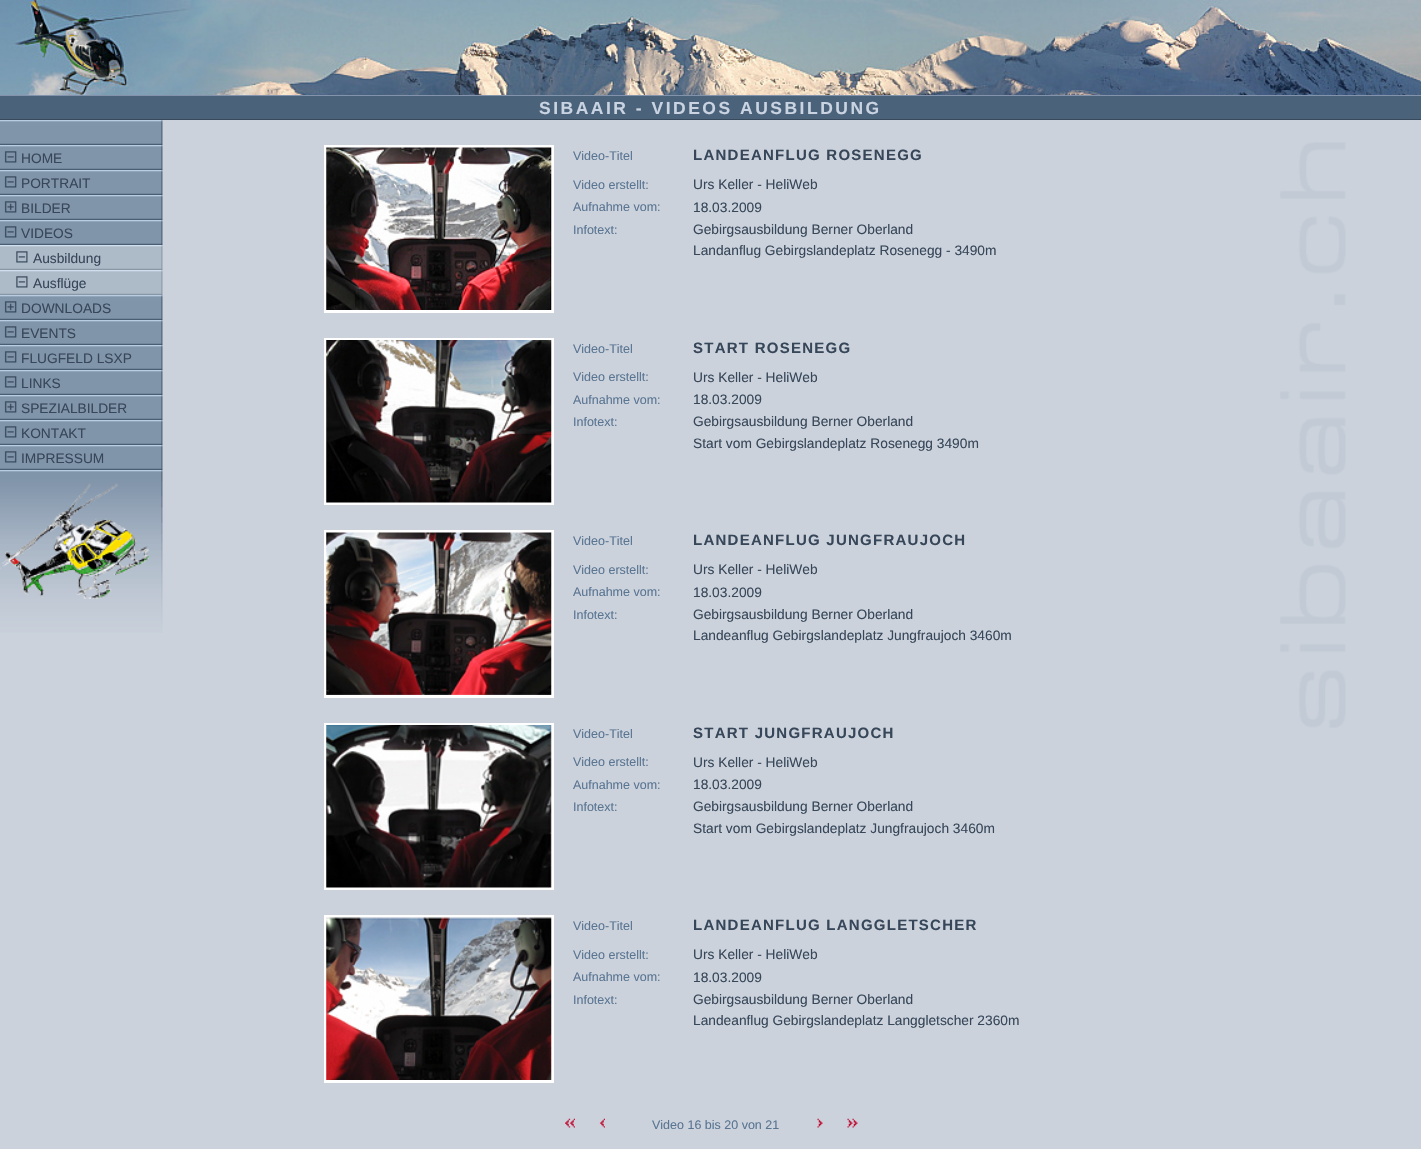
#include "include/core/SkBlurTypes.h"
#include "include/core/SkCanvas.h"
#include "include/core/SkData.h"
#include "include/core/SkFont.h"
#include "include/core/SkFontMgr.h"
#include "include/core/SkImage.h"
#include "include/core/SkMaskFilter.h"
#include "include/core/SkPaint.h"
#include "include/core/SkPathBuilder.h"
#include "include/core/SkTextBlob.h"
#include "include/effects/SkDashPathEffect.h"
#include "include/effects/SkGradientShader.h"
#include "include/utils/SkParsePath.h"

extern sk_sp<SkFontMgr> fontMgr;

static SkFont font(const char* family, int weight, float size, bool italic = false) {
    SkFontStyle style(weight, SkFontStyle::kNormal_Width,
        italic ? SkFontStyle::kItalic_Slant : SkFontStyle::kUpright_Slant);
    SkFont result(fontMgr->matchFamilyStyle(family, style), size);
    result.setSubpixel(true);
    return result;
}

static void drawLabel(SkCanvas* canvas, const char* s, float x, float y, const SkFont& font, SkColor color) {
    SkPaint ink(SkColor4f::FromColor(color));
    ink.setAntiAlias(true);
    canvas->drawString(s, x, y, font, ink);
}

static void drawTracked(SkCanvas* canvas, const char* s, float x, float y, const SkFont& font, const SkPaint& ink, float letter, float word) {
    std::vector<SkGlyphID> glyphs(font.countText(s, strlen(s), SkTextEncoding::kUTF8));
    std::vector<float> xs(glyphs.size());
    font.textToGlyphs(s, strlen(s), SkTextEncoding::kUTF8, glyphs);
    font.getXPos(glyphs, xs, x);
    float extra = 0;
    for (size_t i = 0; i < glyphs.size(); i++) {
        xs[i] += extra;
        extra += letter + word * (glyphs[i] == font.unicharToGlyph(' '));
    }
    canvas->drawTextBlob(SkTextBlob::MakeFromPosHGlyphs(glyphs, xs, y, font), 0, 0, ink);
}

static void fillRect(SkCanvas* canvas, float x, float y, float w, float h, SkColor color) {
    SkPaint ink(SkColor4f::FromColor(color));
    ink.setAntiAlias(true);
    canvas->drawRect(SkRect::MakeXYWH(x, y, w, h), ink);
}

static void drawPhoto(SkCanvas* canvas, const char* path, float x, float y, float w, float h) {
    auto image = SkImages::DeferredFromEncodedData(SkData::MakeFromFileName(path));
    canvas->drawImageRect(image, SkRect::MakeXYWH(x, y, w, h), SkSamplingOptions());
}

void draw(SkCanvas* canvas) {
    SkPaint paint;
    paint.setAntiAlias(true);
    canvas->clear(0xFFFFFFFF);
    drawPhoto(canvas, "assets/img1.png", 0, 0, 1421, 95);
    fillRect(canvas, 0, 95, 1421, 1, 0xFF8393AB);
    fillRect(canvas, 0, 96, 1421, 23, 0xFF4B627B);
    SkFont font1 = font("Liberation Sans", 700, 17.5f);
    paint.setColor(0xFFC9D3E1);
    drawTracked(canvas, "SIBAAIR - VIDEOS AUSBILDUNG", 539, 114, font1, paint, 2.5f, 0);
    fillRect(canvas, 0, 119, 1421, 1, 0xFF38495C);
    fillRect(canvas, 0, 120, 1421, 1029, 0xFFCBD2DC);
    drawPhoto(canvas, "assets/img2.png", 0, 120, 163, 25);
    drawPhoto(canvas, "assets/img2.png", 0, 145, 163, 25);
    drawPhoto(canvas, "assets/img3.png", 4, 151, 13, 12);
    SkFont font2 = font("Liberation Sans", 400, 13.75f);
    drawLabel(canvas, "HOME", 21, 163, font2, 0xFF374759);
    drawPhoto(canvas, "assets/img2.png", 0, 170, 163, 25);
    drawPhoto(canvas, "assets/img3.png", 4, 176, 13, 12);
    drawLabel(canvas, "PORTRAIT", 21, 188, font2, 0xFF374759);
    drawPhoto(canvas, "assets/img2.png", 0, 195, 163, 25);
    drawPhoto(canvas, "assets/img4.png", 4, 201, 13, 12);
    drawLabel(canvas, "BILDER", 21, 213, font2, 0xFF374759);
    drawPhoto(canvas, "assets/img2.png", 0, 220, 163, 25);
    drawPhoto(canvas, "assets/img3.png", 4, 226, 13, 12);
    drawLabel(canvas, "VIDEOS", 21, 238, font2, 0xFF374759);
    drawPhoto(canvas, "assets/img5.png", 0, 245, 163, 25);
    drawPhoto(canvas, "assets/img6.png", 16, 251, 12, 12);
    drawLabel(canvas, "Ausbildung", 33, 263, font2, 0xFF374759);
    drawPhoto(canvas, "assets/img5.png", 0, 270, 163, 25);
    drawPhoto(canvas, "assets/img6.png", 16, 276, 12, 12);
    drawLabel(canvas, "Ausflüge", 33, 288, font2, 0xFF374759);
    drawPhoto(canvas, "assets/img2.png", 0, 295, 163, 25);
    drawPhoto(canvas, "assets/img4.png", 4, 301, 13, 12);
    drawLabel(canvas, "DOWNLOADS", 21, 313, font2, 0xFF374759);
    drawPhoto(canvas, "assets/img2.png", 0, 320, 163, 25);
    drawPhoto(canvas, "assets/img3.png", 4, 326, 13, 12);
    drawLabel(canvas, "EVENTS", 21, 338, font2, 0xFF374759);
    drawPhoto(canvas, "assets/img2.png", 0, 345, 163, 25);
    drawPhoto(canvas, "assets/img3.png", 4, 351, 13, 12);
    drawLabel(canvas, "FLUGFELD LSXP", 21, 363, font2, 0xFF374759);
    drawPhoto(canvas, "assets/img2.png", 0, 370, 163, 25);
    drawPhoto(canvas, "assets/img3.png", 4, 376, 13, 12);
    drawLabel(canvas, "LINKS", 21, 388, font2, 0xFF374759);
    drawPhoto(canvas, "assets/img2.png", 0, 395, 163, 25);
    drawPhoto(canvas, "assets/img4.png", 4, 401, 13, 12);
    drawLabel(canvas, "SPEZIALBILDER", 21, 413, font2, 0xFF374759);
    drawPhoto(canvas, "assets/img2.png", 0, 420, 163, 25);
    drawPhoto(canvas, "assets/img3.png", 4, 426, 13, 12);
    drawLabel(canvas, "KONTAKT", 21, 438, font2, 0xFF374759);
    drawPhoto(canvas, "assets/img2.png", 0, 445, 163, 25);
    drawPhoto(canvas, "assets/img3.png", 4, 451, 13, 12);
    drawLabel(canvas, "IMPRESSUM", 21, 463, font2, 0xFF374759);
    drawPhoto(canvas, "assets/img7.png", 0, 470, 163, 163);
    fillRect(canvas, 324, 145, 230, 168, 0xFFFFFFFF);
    drawPhoto(canvas, "assets/img8.png", 326, 147, 226, 163);
    SkFont font3 = font("Liberation Sans", 400, 12.5f);
    drawLabel(canvas, "Video-Titel", 573, 160, font3, 0xFF5A7592);
    SkFont font4 = font("Liberation Sans", 700, 15);
    paint.setColor(0xFF374759);
    drawTracked(canvas, "LANDEANFLUG ROSENEGG", 693, 160, font4, paint, 1.25f, 0);
    drawLabel(canvas, "Video erstellt:", 573, 189, font3, 0xFF5A7592);
    drawLabel(canvas, "Urs Keller - HeliWeb", 693, 189, font2, 0xFF374759);
    drawLabel(canvas, "Aufnahme vom:", 573, 211, font3, 0xFF5A7592);
    drawLabel(canvas, "18.03.2009", 693, 212, font2, 0xFF374759);
    drawLabel(canvas, "Infotext:", 573, 234, font3, 0xFF5A7592);
    drawLabel(canvas, "Gebirgsausbildung Berner Oberland", 693, 234, font2, 0xFF374759);
    drawLabel(canvas, "Landanflug Gebirgslandeplatz Rosenegg - 3490m", 693, 255, font2, 0xFF374759);
    fillRect(canvas, 324, 338, 230, 167, 0xFFFFFFFF);
    drawPhoto(canvas, "assets/img9.png", 326, 340, 226, 163);
    drawLabel(canvas, "Video-Titel", 573, 353, font3, 0xFF5A7592);
    drawTracked(canvas, "START ROSENEGG", 693, 353, font4, paint, 1.25f, 0);
    drawLabel(canvas, "Video erstellt:", 573, 381, font3, 0xFF5A7592);
    drawLabel(canvas, "Urs Keller - HeliWeb", 693, 382, font2, 0xFF374759);
    drawLabel(canvas, "Aufnahme vom:", 573, 404, font3, 0xFF5A7592);
    drawLabel(canvas, "18.03.2009", 693, 404, font2, 0xFF374759);
    drawLabel(canvas, "Infotext:", 573, 426, font3, 0xFF5A7592);
    drawLabel(canvas, "Gebirgsausbildung Berner Oberland", 693, 426, font2, 0xFF374759);
    drawLabel(canvas, "Start vom Gebirgslandeplatz Rosenegg 3490m", 693, 448, font2, 0xFF374759);
    fillRect(canvas, 324, 530, 230, 168, 0xFFFFFFFF);
    drawPhoto(canvas, "assets/img10.png", 326, 532, 226, 163);
    drawLabel(canvas, "Video-Titel", 573, 545, font3, 0xFF5A7592);
    drawTracked(canvas, "LANDEANFLUG JUNGFRAUJOCH", 693, 545, font4, paint, 1.25f, 0);
    drawLabel(canvas, "Video erstellt:", 573, 574, font3, 0xFF5A7592);
    drawLabel(canvas, "Urs Keller - HeliWeb", 693, 574, font2, 0xFF374759);
    drawLabel(canvas, "Aufnahme vom:", 573, 596, font3, 0xFF5A7592);
    drawLabel(canvas, "18.03.2009", 693, 597, font2, 0xFF374759);
    drawLabel(canvas, "Infotext:", 573, 619, font3, 0xFF5A7592);
    drawLabel(canvas, "Gebirgsausbildung Berner Oberland", 693, 619, font2, 0xFF374759);
    drawLabel(canvas, "Landeanflug Gebirgslandeplatz Jungfraujoch 3460m", 693, 640, font2, 0xFF374759);
    fillRect(canvas, 324, 723, 230, 167, 0xFFFFFFFF);
    drawPhoto(canvas, "assets/img11.png", 326, 725, 226, 163);
    drawLabel(canvas, "Video-Titel", 573, 738, font3, 0xFF5A7592);
    drawTracked(canvas, "START JUNGFRAUJOCH", 693, 738, font4, paint, 1.25f, 0);
    drawLabel(canvas, "Video erstellt:", 573, 766, font3, 0xFF5A7592);
    drawLabel(canvas, "Urs Keller - HeliWeb", 693, 767, font2, 0xFF374759);
    drawLabel(canvas, "Aufnahme vom:", 573, 789, font3, 0xFF5A7592);
    drawLabel(canvas, "18.03.2009", 693, 789, font2, 0xFF374759);
    drawLabel(canvas, "Infotext:", 573, 811, font3, 0xFF5A7592);
    drawLabel(canvas, "Gebirgsausbildung Berner Oberland", 693, 811, font2, 0xFF374759);
    drawLabel(canvas, "Start vom Gebirgslandeplatz Jungfraujoch 3460m", 693, 833, font2, 0xFF374759);
    fillRect(canvas, 324, 915, 230, 168, 0xFFFFFFFF);
    drawPhoto(canvas, "assets/img12.png", 326, 917, 226, 163);
    drawLabel(canvas, "Video-Titel", 573, 930, font3, 0xFF5A7592);
    drawTracked(canvas, "LANDEANFLUG LANGGLETSCHER", 693, 930, font4, paint, 1.25f, 0);
    drawLabel(canvas, "Video erstellt:", 573, 959, font3, 0xFF5A7592);
    drawLabel(canvas, "Urs Keller - HeliWeb", 693, 959, font2, 0xFF374759);
    drawLabel(canvas, "Aufnahme vom:", 573, 981, font3, 0xFF5A7592);
    drawLabel(canvas, "18.03.2009", 693, 982, font2, 0xFF374759);
    drawLabel(canvas, "Infotext:", 573, 1004, font3, 0xFF5A7592);
    drawLabel(canvas, "Gebirgsausbildung Berner Oberland", 693, 1004, font2, 0xFF374759);
    drawLabel(canvas, "Landeanflug Gebirgslandeplatz Langgletscher 2360m", 693, 1025, font2, 0xFF374759);
    drawPhoto(canvas, "assets/img13.png", 565, 1118, 10, 10);
    drawPhoto(canvas, "assets/img14.png", 599, 1118, 6, 10);
    drawLabel(canvas, "Video 16 bis 20 von 21", 652, 1129, font3, 0xFF5A7592);
    drawPhoto(canvas, "assets/img15.png", 817, 1118, 6, 10);
    drawPhoto(canvas, "assets/img16.png", 847, 1118, 11, 10);
    drawPhoto(canvas, "assets/img17.png", 1280, 142, 66, 586);
}
